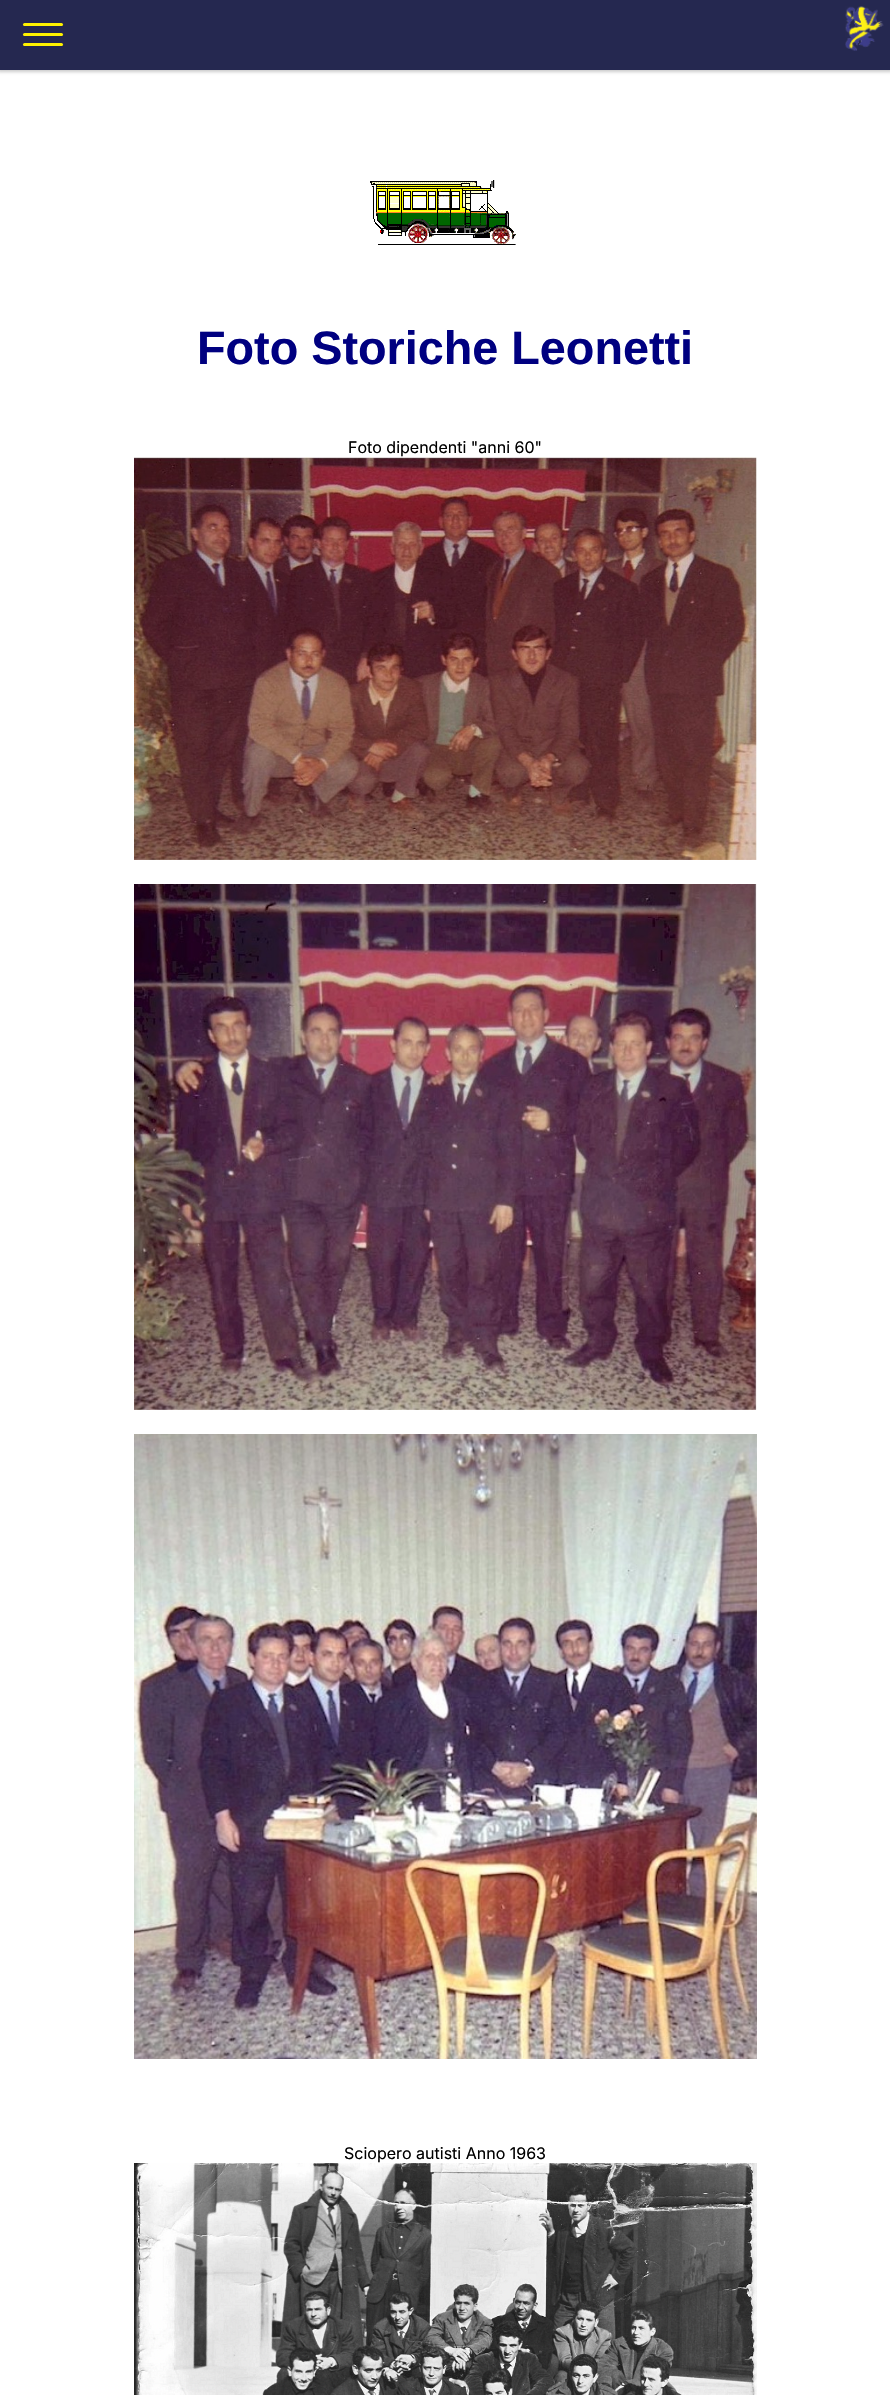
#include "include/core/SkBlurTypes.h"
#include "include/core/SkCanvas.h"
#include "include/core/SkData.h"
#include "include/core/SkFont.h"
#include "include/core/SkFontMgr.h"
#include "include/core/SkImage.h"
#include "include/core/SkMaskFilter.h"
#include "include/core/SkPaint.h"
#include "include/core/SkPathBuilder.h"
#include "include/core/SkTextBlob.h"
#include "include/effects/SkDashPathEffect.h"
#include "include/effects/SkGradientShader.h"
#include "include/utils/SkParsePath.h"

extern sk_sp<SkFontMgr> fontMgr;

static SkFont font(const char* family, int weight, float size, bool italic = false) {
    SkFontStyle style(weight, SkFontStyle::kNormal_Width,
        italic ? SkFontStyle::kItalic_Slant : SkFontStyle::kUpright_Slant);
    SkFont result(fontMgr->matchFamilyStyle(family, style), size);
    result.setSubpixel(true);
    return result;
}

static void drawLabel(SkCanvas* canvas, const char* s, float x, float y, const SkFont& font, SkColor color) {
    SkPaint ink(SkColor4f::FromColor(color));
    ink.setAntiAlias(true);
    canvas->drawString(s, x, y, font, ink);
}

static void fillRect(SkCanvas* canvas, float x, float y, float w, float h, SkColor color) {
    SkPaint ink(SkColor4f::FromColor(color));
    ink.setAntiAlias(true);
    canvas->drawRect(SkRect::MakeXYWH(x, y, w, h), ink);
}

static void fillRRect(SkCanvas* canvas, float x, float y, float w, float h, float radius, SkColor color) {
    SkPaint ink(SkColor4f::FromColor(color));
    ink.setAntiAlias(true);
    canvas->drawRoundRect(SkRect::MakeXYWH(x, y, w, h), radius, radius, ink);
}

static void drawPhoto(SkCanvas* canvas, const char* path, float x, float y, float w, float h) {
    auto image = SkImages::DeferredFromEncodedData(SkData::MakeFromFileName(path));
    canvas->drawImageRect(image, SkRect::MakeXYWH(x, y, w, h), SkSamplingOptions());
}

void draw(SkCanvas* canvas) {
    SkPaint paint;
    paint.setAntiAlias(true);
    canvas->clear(0xFFFFFFFF);
    paint.setColor(0x33000000);
    paint.setMaskFilter(SkMaskFilter::MakeBlur(kNormal_SkBlurStyle, 1.5f));
    canvas->drawRect(SkRect::MakeXYWH(-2, -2, 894, 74), paint);
    paint.setMaskFilter(nullptr);
    fillRect(canvas, 0, 0, 890, 70, 0xFF252850);
    drawPhoto(canvas, "assets/img1.png", 845, 6, 39, 45);
    fillRRect(canvas, 23, 33, 40, 3, 1.5f, 0xFFFFF200);
    fillRRect(canvas, 23, 23, 40, 3, 1.5f, 0xFFFFF200);
    fillRRect(canvas, 23, 43, 40, 3, 1.5f, 0xFFFFF200);
    drawPhoto(canvas, "assets/img2.png", 370, 180, 146, 65);
    SkFont font1 = font("Liberation Sans", 700, 46.75f);
    drawLabel(canvas, "Foto Storiche Leonetti", 197, 364, font1, 0xFF000080);
    SkFont font2 = font("Inter", 400, 16);
    drawLabel(canvas, "Foto dipendenti \"anni 60\"", 348, 453, font2, 0xFF000000);
    drawPhoto(canvas, "assets/img3.png", 134, 457, 623, 403);
    drawPhoto(canvas, "assets/img4.png", 134, 884, 623, 526);
    drawPhoto(canvas, "assets/img5.png", 134, 1434, 623, 625);
    drawLabel(canvas, "Sciopero autisti Anno 1963", 344, 2159, font2, 0xFF000000);
    drawPhoto(canvas, "assets/img6.png", 134, 2163, 623, 232);
}
